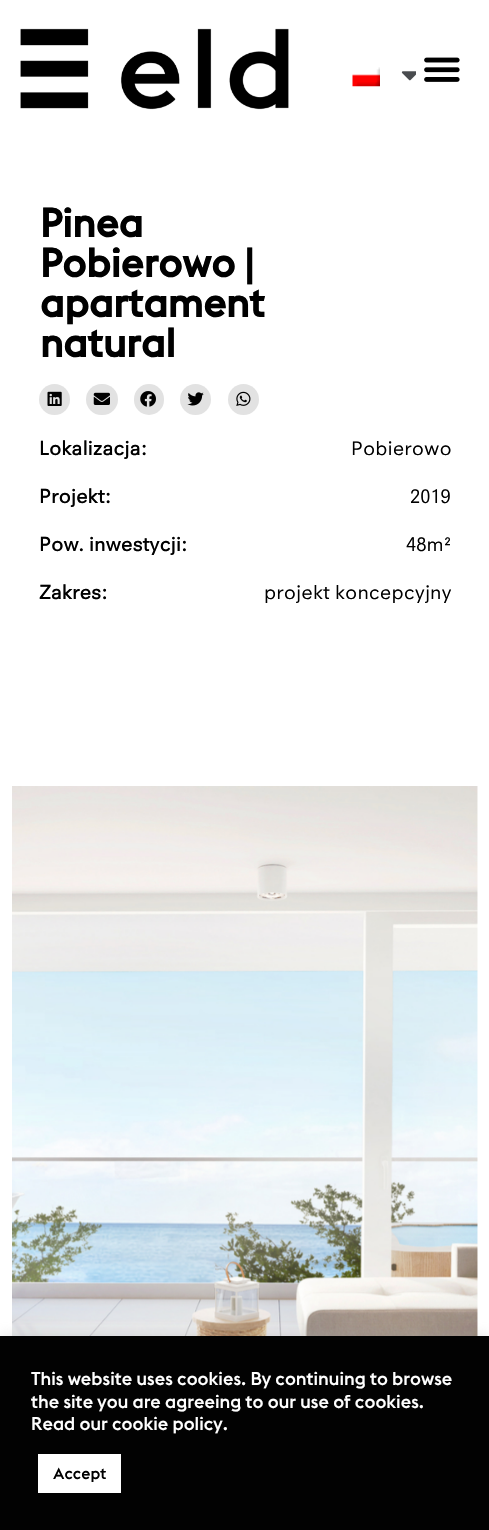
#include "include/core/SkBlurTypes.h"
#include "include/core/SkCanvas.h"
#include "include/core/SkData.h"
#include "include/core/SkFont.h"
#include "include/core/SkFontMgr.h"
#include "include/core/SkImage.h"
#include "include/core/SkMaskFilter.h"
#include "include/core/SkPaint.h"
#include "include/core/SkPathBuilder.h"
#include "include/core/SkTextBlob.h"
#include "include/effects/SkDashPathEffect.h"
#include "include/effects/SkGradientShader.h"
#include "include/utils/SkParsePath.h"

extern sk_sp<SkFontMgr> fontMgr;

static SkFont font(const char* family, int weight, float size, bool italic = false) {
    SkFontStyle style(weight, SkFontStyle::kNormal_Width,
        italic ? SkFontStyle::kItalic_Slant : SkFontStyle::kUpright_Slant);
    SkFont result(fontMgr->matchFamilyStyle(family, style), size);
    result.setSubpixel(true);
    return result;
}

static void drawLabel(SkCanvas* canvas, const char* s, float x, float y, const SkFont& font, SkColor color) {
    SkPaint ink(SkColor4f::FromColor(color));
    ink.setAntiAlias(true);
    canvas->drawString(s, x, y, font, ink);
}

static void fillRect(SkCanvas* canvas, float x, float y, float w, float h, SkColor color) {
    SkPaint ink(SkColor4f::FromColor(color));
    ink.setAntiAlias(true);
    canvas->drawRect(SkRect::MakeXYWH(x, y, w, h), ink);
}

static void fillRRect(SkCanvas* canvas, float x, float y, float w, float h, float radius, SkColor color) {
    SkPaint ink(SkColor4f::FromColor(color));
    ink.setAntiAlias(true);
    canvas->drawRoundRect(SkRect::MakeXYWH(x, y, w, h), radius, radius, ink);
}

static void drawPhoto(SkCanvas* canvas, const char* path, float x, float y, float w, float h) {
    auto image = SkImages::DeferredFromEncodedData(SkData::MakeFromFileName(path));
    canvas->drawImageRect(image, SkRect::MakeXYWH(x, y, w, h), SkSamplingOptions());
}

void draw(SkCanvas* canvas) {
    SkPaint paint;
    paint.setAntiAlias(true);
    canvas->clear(0xFFFFFFFF);
    drawPhoto(canvas, "assets/img1.png", 20, 28, 269, 82);
    drawPhoto(canvas, "assets/img2.png", 352, 67, 28, 20);
    drawPhoto(canvas, "assets/img3.png", 401, 71, 15, 10);
    drawPhoto(canvas, "assets/img4.png", 424, 57, 36, 25);
    SkFont font1 = font("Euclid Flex", 700, 40);
    drawLabel(canvas, "Pinea", 40, 237, font1, 0xFF000000);
    drawLabel(canvas, "Pobierowo |", 40, 277, font1, 0xFF000000);
    drawLabel(canvas, "apartament", 40, 317, font1, 0xFF000000);
    drawLabel(canvas, "natural", 40, 357, font1, 0xFF000000);
    paint.setColor(0xFFE2E2E2);
    canvas->drawCircle(54.5f, 399.5f, 15.5f, paint);
    drawPhoto(canvas, "assets/img5.png", 47, 391, 15, 15);
    fillRRect(canvas, 86, 384, 32, 31, 15.5f, 0xFFE2E2E2);
    drawPhoto(canvas, "assets/img6.png", 93, 392, 17, 13);
    fillRRect(canvas, 134, 384, 30, 31, 15, 0xFFE2E2E2);
    drawPhoto(canvas, "assets/img7.png", 140, 391, 16, 16);
    canvas->drawCircle(195.5f, 399.5f, 15.5f, paint);
    drawPhoto(canvas, "assets/img8.png", 187, 392, 17, 14);
    canvas->drawCircle(243.5f, 399.5f, 15.5f, paint);
    drawPhoto(canvas, "assets/img9.png", 236, 391, 15, 15);
    SkFont font2 = font("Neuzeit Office", 700, 20);
    drawLabel(canvas, "Lokalizacja:", 39, 455, font2, 0xFF000000);
    drawLabel(canvas, "Projekt:", 39, 503, font2, 0xFF000000);
    drawLabel(canvas, "Pow. inwestycji:", 39, 551, font2, 0xFF000000);
    drawLabel(canvas, "Zakres:", 39, 599, font2, 0xFF000000);
    SkFont font3 = font("Neuzeit Office", 400, 20);
    drawLabel(canvas, "Pobierowo", 351, 455, font3, 0xFF000000);
    drawLabel(canvas, "2019", 410, 503, font3, 0xFF000000);
    drawLabel(canvas, "48m²", 406, 551, font3, 0xFF000000);
    drawLabel(canvas, "projekt koncepcyjny", 264, 599, font3, 0xFF000000);
    drawPhoto(canvas, "assets/img10.png", 12, 786, 466, 550);
    paint.setColor(0x4DACABAB);
    paint.setMaskFilter(SkMaskFilter::MakeBlur(kNormal_SkBlurStyle, 6));
    canvas->drawRect(SkRect::MakeXYWH(0, 1335, 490, 194), paint);
    paint.setMaskFilter(nullptr);
    fillRect(canvas, 0, 1336, 489, 194, 0xFF020202);
    SkFont font4 = font("Euclid Flex", 500, 18.3f);
    drawLabel(canvas, "This website uses cookies. By continuing to browse", 31, 1385, font4, 0xFFFFFFFF);
    drawLabel(canvas, "the site you are agreeing to our use of cookies.", 31, 1408, font4, 0xFFFFFFFF);
    drawLabel(canvas, "Read our cookie policy.", 31, 1430, font4, 0xFFFFFFFF);
    fillRect(canvas, 38, 1454, 83, 39, 0xFFFFFFFF);
    SkFont font5 = font("Euclid Flex", 500, 16);
    drawLabel(canvas, "Accept", 53, 1479, font5, 0xFF000000);
}
